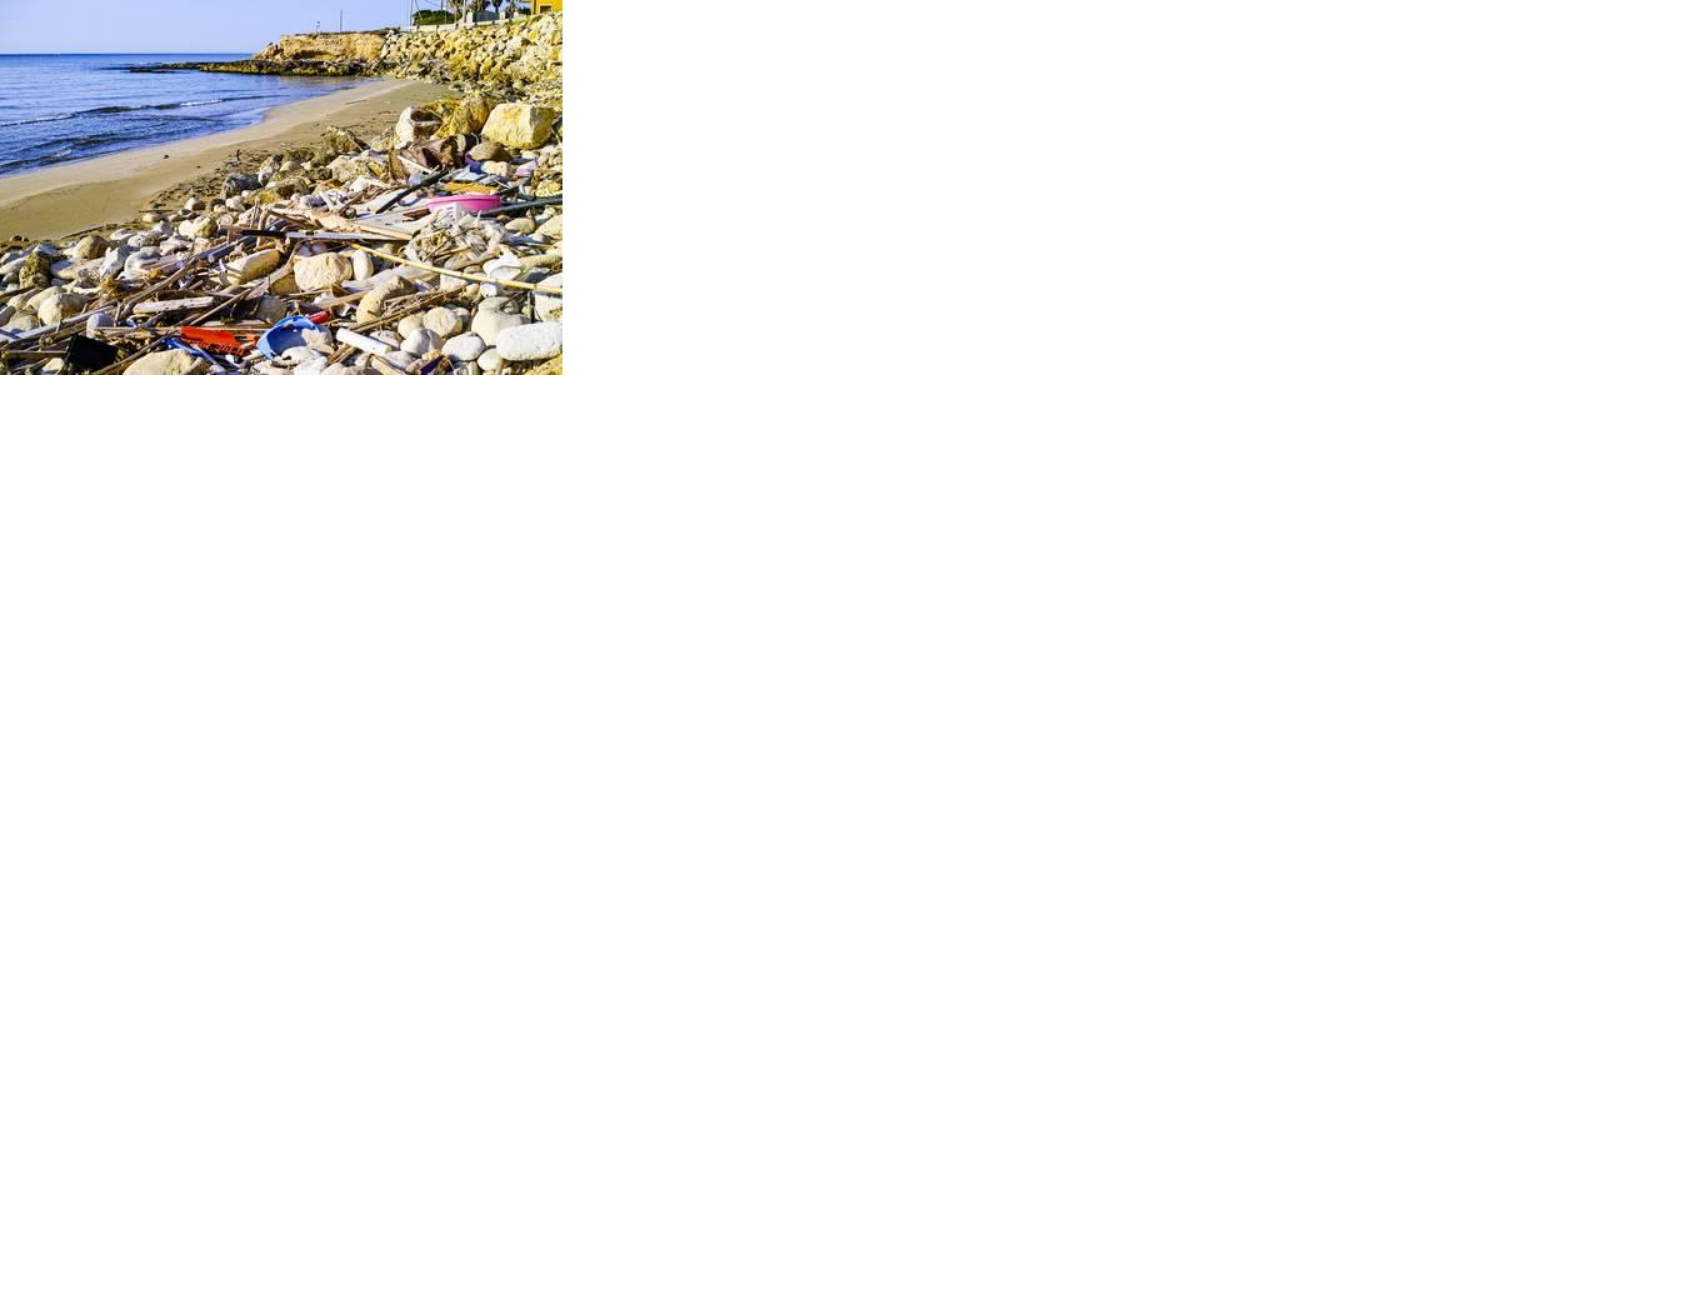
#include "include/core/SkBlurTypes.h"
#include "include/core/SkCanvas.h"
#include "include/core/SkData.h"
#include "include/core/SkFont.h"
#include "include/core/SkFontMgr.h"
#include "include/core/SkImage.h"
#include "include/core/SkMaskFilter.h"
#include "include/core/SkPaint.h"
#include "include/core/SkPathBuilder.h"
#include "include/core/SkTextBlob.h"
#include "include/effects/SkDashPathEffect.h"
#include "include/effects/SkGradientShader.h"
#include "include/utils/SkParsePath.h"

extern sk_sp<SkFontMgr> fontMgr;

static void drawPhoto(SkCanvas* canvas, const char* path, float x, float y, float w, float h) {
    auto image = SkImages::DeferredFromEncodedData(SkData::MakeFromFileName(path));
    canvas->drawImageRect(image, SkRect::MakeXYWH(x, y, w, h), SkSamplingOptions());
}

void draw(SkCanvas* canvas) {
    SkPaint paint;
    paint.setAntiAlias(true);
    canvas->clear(0xFFFFFFFF);
    drawPhoto(canvas, "assets/img1.png", 0, 0, 563, 375);
}
